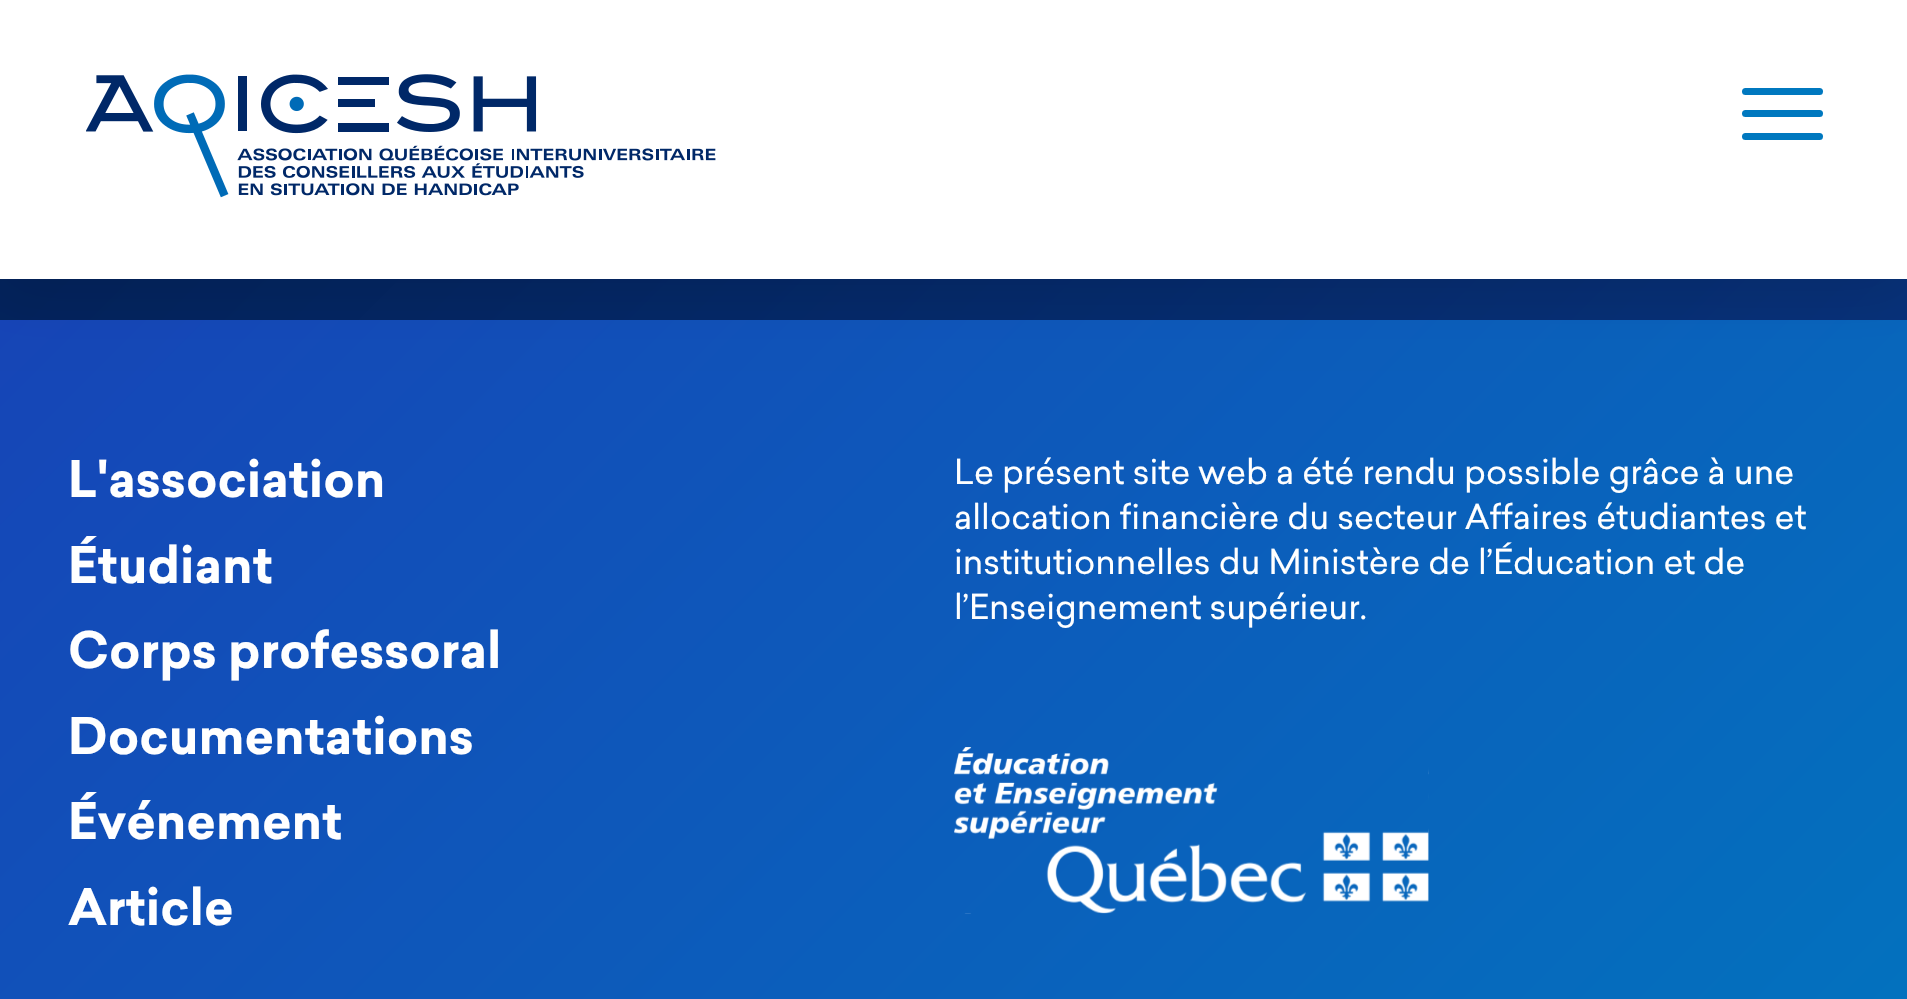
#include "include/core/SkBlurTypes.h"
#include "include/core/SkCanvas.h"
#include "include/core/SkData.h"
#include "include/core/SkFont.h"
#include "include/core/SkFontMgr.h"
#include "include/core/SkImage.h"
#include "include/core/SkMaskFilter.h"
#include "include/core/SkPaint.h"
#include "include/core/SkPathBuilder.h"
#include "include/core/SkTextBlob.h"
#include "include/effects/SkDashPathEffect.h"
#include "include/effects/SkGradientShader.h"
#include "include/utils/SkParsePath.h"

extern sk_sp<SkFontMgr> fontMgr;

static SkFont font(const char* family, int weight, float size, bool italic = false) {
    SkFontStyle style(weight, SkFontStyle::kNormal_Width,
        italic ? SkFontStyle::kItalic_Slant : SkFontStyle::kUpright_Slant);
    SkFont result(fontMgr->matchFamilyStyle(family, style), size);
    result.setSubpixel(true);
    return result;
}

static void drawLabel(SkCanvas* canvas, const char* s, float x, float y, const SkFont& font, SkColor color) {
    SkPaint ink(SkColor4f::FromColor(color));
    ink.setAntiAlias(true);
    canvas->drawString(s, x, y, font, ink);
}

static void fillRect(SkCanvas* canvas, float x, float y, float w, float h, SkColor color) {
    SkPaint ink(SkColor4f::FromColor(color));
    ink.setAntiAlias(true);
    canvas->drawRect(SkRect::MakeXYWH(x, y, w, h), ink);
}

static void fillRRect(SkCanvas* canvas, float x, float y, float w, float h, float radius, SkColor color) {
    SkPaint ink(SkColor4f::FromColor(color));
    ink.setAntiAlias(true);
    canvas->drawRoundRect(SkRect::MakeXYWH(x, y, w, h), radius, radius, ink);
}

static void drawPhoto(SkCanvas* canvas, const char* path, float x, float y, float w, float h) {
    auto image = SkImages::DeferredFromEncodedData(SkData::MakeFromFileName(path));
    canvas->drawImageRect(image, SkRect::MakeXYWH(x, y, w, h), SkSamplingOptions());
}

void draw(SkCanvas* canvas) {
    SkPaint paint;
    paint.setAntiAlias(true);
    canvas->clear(0xFFFFFFFF);
    {
        const SkColor colors[] = {0xFF073179, 0xFF001A4A};
        const float stops[] = {0, 1};
        const SkPoint ends[] = {{1729, 499}, {179, -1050}};
        paint.setShader(SkGradientShader::MakeLinear(ends, colors, stops, 2, SkTileMode::kClamp));
        paint.setAlpha(255);
    }
    canvas->drawRect(SkRect::MakeXYWH(0, 279, 1907, 41), paint);
    {
        const SkColor colors[] = {0xFF0078BF, 0xFF1645B7};
        const float stops[] = {0, 1};
        const SkPoint ends[] = {{1702, 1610}, {206, 114}};
        paint.setShader(SkGradientShader::MakeLinear(ends, colors, stops, 2, SkTileMode::kClamp));
        paint.setAlpha(255);
    }
    canvas->drawRect(SkRect::MakeXYWH(0, 320, 1907, 679), paint);
    paint.setShader(nullptr);
    paint.setColor(0x1C000000);
    paint.setMaskFilter(SkMaskFilter::MakeBlur(kNormal_SkBlurStyle, 28));
    canvas->drawRect(SkRect::MakeXYWH(0, 9, 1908, 279), paint);
    paint.setMaskFilter(nullptr);
    fillRect(canvas, 0, 0, 1907, 279, 0xFFFFFFFF);
    drawPhoto(canvas, "assets/img1.png", 86, 74, 630, 124);
    fillRRect(canvas, 1742, 88, 81, 7, 3.5f, 0xFF0078BF);
    fillRRect(canvas, 1742, 110, 81, 7, 3.5f, 0xFF0078BF);
    fillRRect(canvas, 1742, 133, 81, 7, 3.5f, 0xFF0078BF);
    SkFont font1 = font("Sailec", 700, 49.5f);
    drawLabel(canvas, "L'association", 68, 497, font1, 0xFFFFFFFF);
    drawLabel(canvas, "Étudiant", 68, 583, font1, 0xFFFFFFFF);
    drawLabel(canvas, "Corps professoral", 68, 668, font1, 0xFFFFFFFF);
    drawLabel(canvas, "Documentations", 68, 754, font1, 0xFFFFFFFF);
    drawLabel(canvas, "Événement", 68, 839, font1, 0xFFFFFFFF);
    drawLabel(canvas, "Article", 68, 925, font1, 0xFFFFFFFF);
    SkFont font2 = font("Sailec", 400, 33.75f);
    drawLabel(canvas, "Le présent site web a été rendu possible grâce à une", 954, 484, font2, 0xFFFFFFFF);
    drawLabel(canvas, "allocation financière du secteur Affaires étudiantes et", 954, 529, font2, 0xFFFFFFFF);
    drawLabel(canvas, "institutionnelles du Ministère de l’Éducation et de", 954, 574, font2, 0xFFFFFFFF);
    drawLabel(canvas, "l’Enseignement supérieur.", 954, 619, font2, 0xFFFFFFFF);
    drawPhoto(canvas, "assets/img2.png", 954, 747, 475, 167);
}
